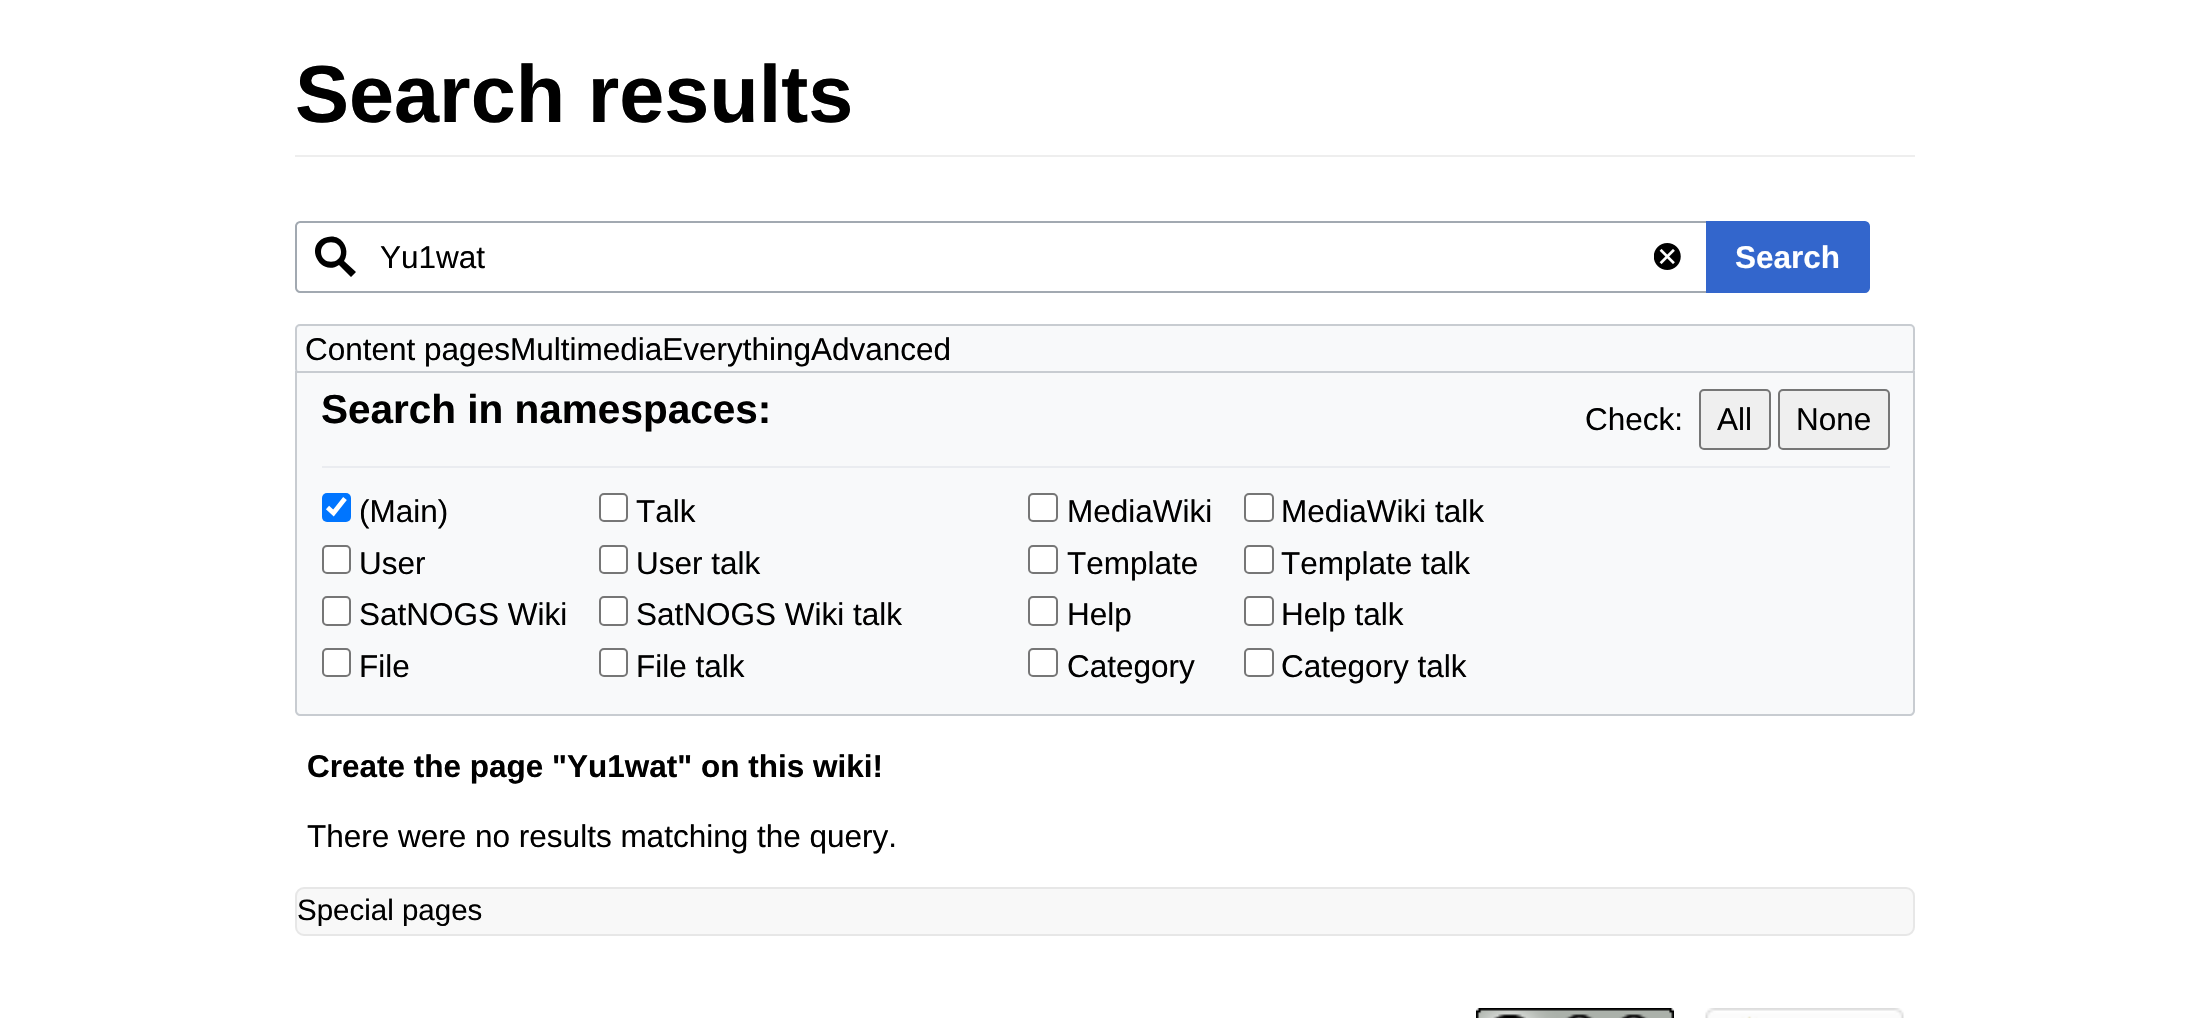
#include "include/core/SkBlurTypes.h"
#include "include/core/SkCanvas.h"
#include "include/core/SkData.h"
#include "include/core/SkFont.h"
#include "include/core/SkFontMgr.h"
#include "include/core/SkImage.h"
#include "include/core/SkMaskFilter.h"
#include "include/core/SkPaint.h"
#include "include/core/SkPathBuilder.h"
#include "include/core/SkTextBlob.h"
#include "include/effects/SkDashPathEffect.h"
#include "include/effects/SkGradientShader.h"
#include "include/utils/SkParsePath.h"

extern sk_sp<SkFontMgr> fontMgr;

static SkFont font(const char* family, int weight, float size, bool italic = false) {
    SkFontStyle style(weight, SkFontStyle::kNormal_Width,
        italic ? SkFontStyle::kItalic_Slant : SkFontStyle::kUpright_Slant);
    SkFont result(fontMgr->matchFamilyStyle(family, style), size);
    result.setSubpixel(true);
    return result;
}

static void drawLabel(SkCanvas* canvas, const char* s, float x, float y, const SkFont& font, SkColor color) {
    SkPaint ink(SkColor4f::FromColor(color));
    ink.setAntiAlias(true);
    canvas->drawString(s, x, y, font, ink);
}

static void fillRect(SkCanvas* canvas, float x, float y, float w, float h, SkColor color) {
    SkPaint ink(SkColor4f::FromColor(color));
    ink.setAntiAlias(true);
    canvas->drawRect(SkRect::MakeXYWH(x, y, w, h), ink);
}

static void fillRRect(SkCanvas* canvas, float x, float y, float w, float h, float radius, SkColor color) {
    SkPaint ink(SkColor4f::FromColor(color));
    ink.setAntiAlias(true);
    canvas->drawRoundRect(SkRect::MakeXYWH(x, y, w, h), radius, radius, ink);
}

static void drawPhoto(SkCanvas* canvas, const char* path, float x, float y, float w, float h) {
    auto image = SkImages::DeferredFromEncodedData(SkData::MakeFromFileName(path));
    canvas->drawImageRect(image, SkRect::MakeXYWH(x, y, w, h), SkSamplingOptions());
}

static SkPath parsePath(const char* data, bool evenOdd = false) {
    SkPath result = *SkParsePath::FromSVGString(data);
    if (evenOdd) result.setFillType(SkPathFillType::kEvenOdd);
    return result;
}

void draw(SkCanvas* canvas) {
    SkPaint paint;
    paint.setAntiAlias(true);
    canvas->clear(0xFFFFFFFF);
    fillRect(canvas, 295, 155, 1620, 2, 0xFFEEEEEE);
    SkFont font1 = font("Liberation Sans", 700, 81);
    drawLabel(canvas, "Search results", 295, 122, font1, 0xFF000000);
    paint.setStroke(true);
    paint.setStrokeWidth(2);
    paint.setColor(0xFFA2A9B1);
    canvas->drawPath(parsePath("M300 222H1707V292H300C298 292 296 290 296 288V226C296 224 298 222 300 222Z"), paint);
    paint.setStroke(false);
    paint.setColor(0xFF000000);
    canvas->drawPath(parsePath("M356 272L344 261C349 253 346 242 338 238C334 236 329 236 324 238C304 247 321 277 339 265L351 277ZM321 252C321 239 341 239 341 252C341 265 321 265 321 252Z"), paint);
    SkFont font2 = font("Liberation Sans", 400, 31.5f);
    drawLabel(canvas, "Yu1wat", 380, 268, font2, 0xFF000000);
    drawPhoto(canvas, "assets/img1.png", 1654, 243, 27, 27);
    paint.setColor(0xFF3366CC);
    canvas->drawPath(parsePath("M1707 222H1865C1867 222 1869 224 1869 226V288C1869 290 1867 292 1865 292H1707Z"), paint);
    paint.setStroke(true);
    canvas->drawPath(parsePath("M1707 222H1865C1867 222 1869 224 1869 226V288C1869 290 1867 292 1865 292H1707Z"), paint);
    SkFont font3 = font("Liberation Sans", 700, 31.5f);
    drawLabel(canvas, "Search", 1735, 268, font3, 0xFFFFFFFF);
    paint.setStroke(false);
    paint.setColor(0xFFF8F9FA);
    canvas->drawRoundRect(SkRect::MakeXYWH(296, 325, 1618, 48), 4, 4, paint);
    paint.setStroke(true);
    paint.setColor(0xFFC8CCD1);
    canvas->drawRoundRect(SkRect::MakeXYWH(296, 325, 1618, 48), 4, 4, paint);
    drawLabel(canvas, "Content pagesMultimediaEverythingAdvanced", 305, 360, font2, 0xFF000000);
    paint.setStroke(false);
    paint.setColor(0xFFF8F9FA);
    canvas->drawPath(parsePath("M296 372H1914V711C1914 713 1912 715 1910 715H300C298 715 296 713 296 711Z"), paint);
    paint.setStroke(true);
    paint.setColor(0xFFC8CCD1);
    canvas->drawPath(parsePath("M296 372H1914V711C1914 713 1912 715 1910 715H300C298 715 296 713 296 711Z"), paint);
    SkFont font4 = font("Liberation Sans", 700, 40.5f);
    drawLabel(canvas, "Search in namespaces:", 321, 423, font4, 0xFF000000);
    drawLabel(canvas, "Check:", 1585, 430, font2, 0xFF000000);
    paint.setStroke(false);
    paint.setColor(0xFFEFEFEF);
    canvas->drawRoundRect(SkRect::MakeXYWH(1700, 390, 70, 59), 4, 4, paint);
    paint.setStroke(true);
    paint.setColor(0xFF767676);
    canvas->drawRoundRect(SkRect::MakeXYWH(1700, 390, 70, 59), 4, 4, paint);
    drawLabel(canvas, "All", 1717, 430, font2, 0xFF000000);
    paint.setStroke(false);
    paint.setColor(0xFFEFEFEF);
    canvas->drawRoundRect(SkRect::MakeXYWH(1779, 390, 110, 59), 4, 4, paint);
    paint.setStroke(true);
    paint.setColor(0xFF767676);
    canvas->drawRoundRect(SkRect::MakeXYWH(1779, 390, 110, 59), 4, 4, paint);
    drawLabel(canvas, "None", 1796, 430, font2, 0xFF000000);
    fillRect(canvas, 322, 466, 1568, 2, 0xFFEAECF0);
    fillRRect(canvas, 322, 493, 29, 29, 5, 0xFF0075FF);
    paint.setStrokeWidth(4.7f);
    paint.setColor(0xFFFFFFFF);
    canvas->drawPath(parsePath("M327.5 507.5L333.5 513L345 498.5"), paint);
    drawLabel(canvas, "(Main)", 359, 522, font2, 0xFF000000);
    paint.setStroke(false);
    canvas->drawRoundRect(SkRect::MakeXYWH(600, 494, 27, 27), 4, 4, paint);
    paint.setStroke(true);
    paint.setStrokeWidth(2);
    paint.setColor(0xFF767676);
    canvas->drawRoundRect(SkRect::MakeXYWH(600, 494, 27, 27), 4, 4, paint);
    drawLabel(canvas, "Talk", 636, 522, font2, 0xFF000000);
    paint.setStroke(false);
    paint.setColor(0xFFFFFFFF);
    canvas->drawRoundRect(SkRect::MakeXYWH(323, 546, 27, 27), 4, 4, paint);
    paint.setStroke(true);
    paint.setColor(0xFF767676);
    canvas->drawRoundRect(SkRect::MakeXYWH(323, 546, 27, 27), 4, 4, paint);
    drawLabel(canvas, "User", 359, 574, font2, 0xFF000000);
    paint.setStroke(false);
    paint.setColor(0xFFFFFFFF);
    canvas->drawRoundRect(SkRect::MakeXYWH(600, 546, 27, 27), 4, 4, paint);
    paint.setStroke(true);
    paint.setColor(0xFF767676);
    canvas->drawRoundRect(SkRect::MakeXYWH(600, 546, 27, 27), 4, 4, paint);
    drawLabel(canvas, "User talk", 636, 574, font2, 0xFF000000);
    paint.setStroke(false);
    paint.setColor(0xFFFFFFFF);
    canvas->drawRoundRect(SkRect::MakeXYWH(323, 597, 27, 28), 4, 4, paint);
    paint.setStroke(true);
    paint.setColor(0xFF767676);
    canvas->drawRoundRect(SkRect::MakeXYWH(323, 597, 27, 28), 4, 4, paint);
    drawLabel(canvas, "SatNOGS Wiki", 359, 625, font2, 0xFF000000);
    paint.setStroke(false);
    paint.setColor(0xFFFFFFFF);
    canvas->drawRoundRect(SkRect::MakeXYWH(600, 597, 27, 28), 4, 4, paint);
    paint.setStroke(true);
    paint.setColor(0xFF767676);
    canvas->drawRoundRect(SkRect::MakeXYWH(600, 597, 27, 28), 4, 4, paint);
    drawLabel(canvas, "SatNOGS Wiki talk", 636, 625, font2, 0xFF000000);
    paint.setStroke(false);
    paint.setColor(0xFFFFFFFF);
    canvas->drawRoundRect(SkRect::MakeXYWH(323, 649, 27, 27), 4, 4, paint);
    paint.setStroke(true);
    paint.setColor(0xFF767676);
    canvas->drawRoundRect(SkRect::MakeXYWH(323, 649, 27, 27), 4, 4, paint);
    drawLabel(canvas, "File", 359, 677, font2, 0xFF000000);
    paint.setStroke(false);
    paint.setColor(0xFFFFFFFF);
    canvas->drawRoundRect(SkRect::MakeXYWH(600, 649, 27, 27), 4, 4, paint);
    paint.setStroke(true);
    paint.setColor(0xFF767676);
    canvas->drawRoundRect(SkRect::MakeXYWH(600, 649, 27, 27), 4, 4, paint);
    drawLabel(canvas, "File talk", 636, 677, font2, 0xFF000000);
    paint.setStroke(false);
    paint.setColor(0xFFFFFFFF);
    canvas->drawRoundRect(SkRect::MakeXYWH(1029, 494, 28, 27), 4, 4, paint);
    paint.setStroke(true);
    paint.setColor(0xFF767676);
    canvas->drawRoundRect(SkRect::MakeXYWH(1029, 494, 28, 27), 4, 4, paint);
    drawLabel(canvas, "MediaWiki", 1067, 522, font2, 0xFF000000);
    paint.setStroke(false);
    paint.setColor(0xFFFFFFFF);
    canvas->drawRoundRect(SkRect::MakeXYWH(1245, 494, 28, 27), 4, 4, paint);
    paint.setStroke(true);
    paint.setColor(0xFF767676);
    canvas->drawRoundRect(SkRect::MakeXYWH(1245, 494, 28, 27), 4, 4, paint);
    drawLabel(canvas, "MediaWiki talk", 1281, 522, font2, 0xFF000000);
    paint.setStroke(false);
    paint.setColor(0xFFFFFFFF);
    canvas->drawRoundRect(SkRect::MakeXYWH(1029, 546, 28, 27), 4, 4, paint);
    paint.setStroke(true);
    paint.setColor(0xFF767676);
    canvas->drawRoundRect(SkRect::MakeXYWH(1029, 546, 28, 27), 4, 4, paint);
    drawLabel(canvas, "Template", 1067, 574, font2, 0xFF000000);
    paint.setStroke(false);
    paint.setColor(0xFFFFFFFF);
    canvas->drawRoundRect(SkRect::MakeXYWH(1245, 546, 28, 27), 4, 4, paint);
    paint.setStroke(true);
    paint.setColor(0xFF767676);
    canvas->drawRoundRect(SkRect::MakeXYWH(1245, 546, 28, 27), 4, 4, paint);
    drawLabel(canvas, "Template talk", 1281, 574, font2, 0xFF000000);
    paint.setStroke(false);
    paint.setColor(0xFFFFFFFF);
    canvas->drawRoundRect(SkRect::MakeXYWH(1029, 597, 28, 28), 4, 4, paint);
    paint.setStroke(true);
    paint.setColor(0xFF767676);
    canvas->drawRoundRect(SkRect::MakeXYWH(1029, 597, 28, 28), 4, 4, paint);
    drawLabel(canvas, "Help", 1067, 625, font2, 0xFF000000);
    paint.setStroke(false);
    paint.setColor(0xFFFFFFFF);
    canvas->drawRoundRect(SkRect::MakeXYWH(1245, 597, 28, 28), 4, 4, paint);
    paint.setStroke(true);
    paint.setColor(0xFF767676);
    canvas->drawRoundRect(SkRect::MakeXYWH(1245, 597, 28, 28), 4, 4, paint);
    drawLabel(canvas, "Help talk", 1281, 625, font2, 0xFF000000);
    paint.setStroke(false);
    paint.setColor(0xFFFFFFFF);
    canvas->drawRoundRect(SkRect::MakeXYWH(1029, 649, 28, 27), 4, 4, paint);
    paint.setStroke(true);
    paint.setColor(0xFF767676);
    canvas->drawRoundRect(SkRect::MakeXYWH(1029, 649, 28, 27), 4, 4, paint);
    drawLabel(canvas, "Category", 1067, 677, font2, 0xFF000000);
    paint.setStroke(false);
    paint.setColor(0xFFFFFFFF);
    canvas->drawRoundRect(SkRect::MakeXYWH(1245, 649, 28, 27), 4, 4, paint);
    paint.setStroke(true);
    paint.setColor(0xFF767676);
    canvas->drawRoundRect(SkRect::MakeXYWH(1245, 649, 28, 27), 4, 4, paint);
    drawLabel(canvas, "Category talk", 1281, 677, font2, 0xFF000000);
    drawLabel(canvas, "Create the page \"Yu1wat\" on this wiki!", 307, 777, font3, 0xFF000000);
    drawLabel(canvas, "There were no results matching the query.", 307, 847, font2, 0xFF000000);
    paint.setStroke(false);
    paint.setColor(0xFFF8F8F8);
    canvas->drawRoundRect(SkRect::MakeXYWH(296, 888, 1618, 47), 8, 8, paint);
    paint.setStroke(true);
    paint.setColor(0xFFE7E7E7);
    canvas->drawRoundRect(SkRect::MakeXYWH(296, 888, 1618, 47), 8, 8, paint);
    SkFont font5 = font("Liberation Sans", 400, 29.5f);
    drawLabel(canvas, "Special pages", 297, 920, font5, 0xFF000000);
    drawPhoto(canvas, "assets/img2.png", 1476, 1008, 198, 10);
    drawPhoto(canvas, "assets/img3.png", 1705, 1008, 199, 10);
}
